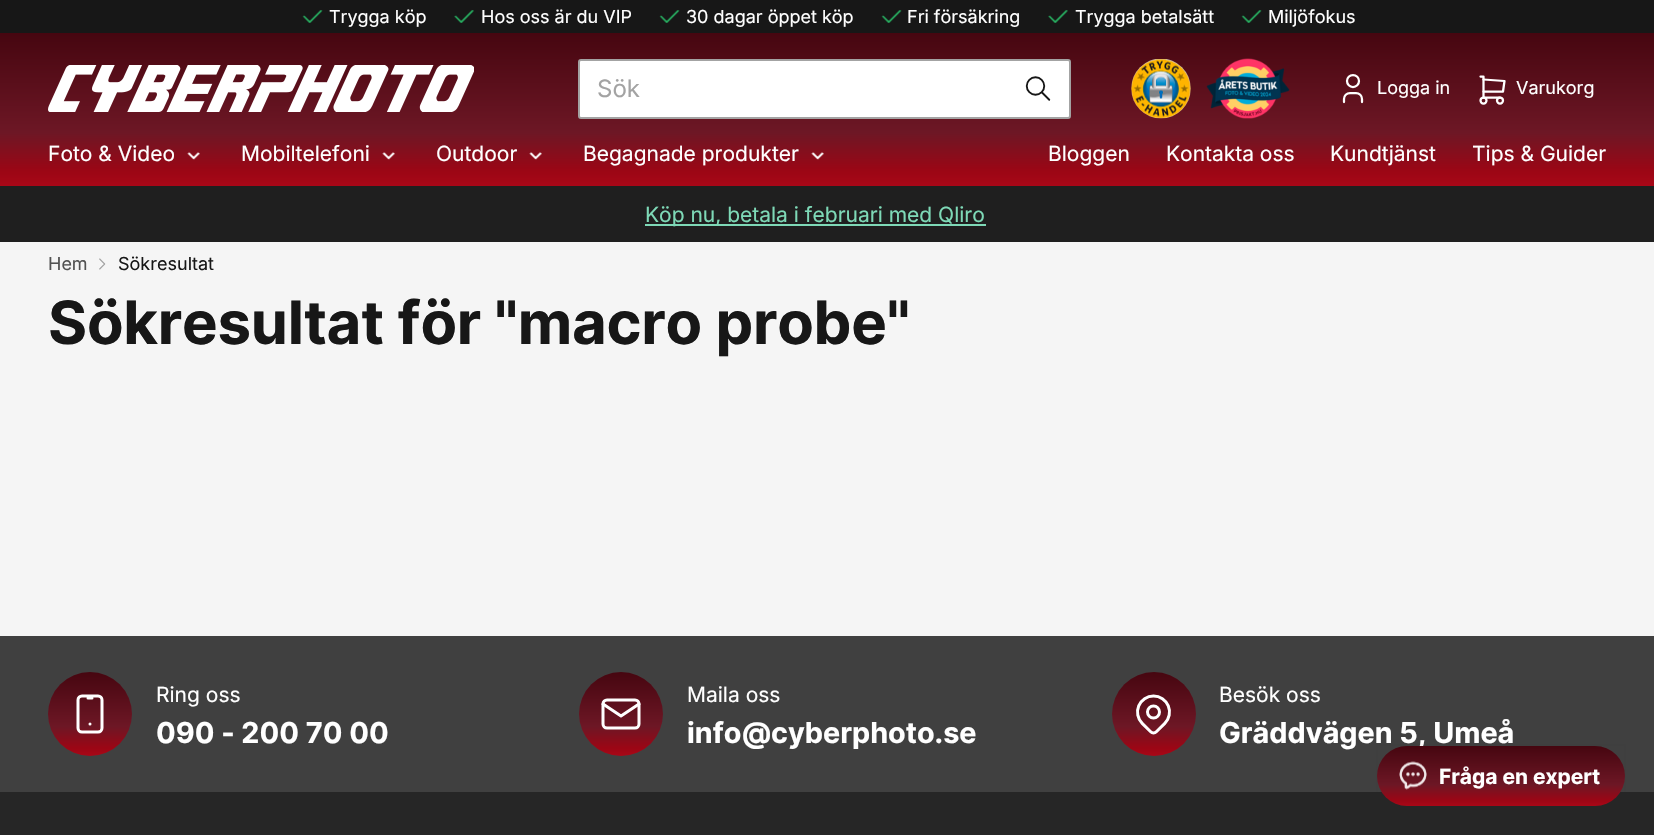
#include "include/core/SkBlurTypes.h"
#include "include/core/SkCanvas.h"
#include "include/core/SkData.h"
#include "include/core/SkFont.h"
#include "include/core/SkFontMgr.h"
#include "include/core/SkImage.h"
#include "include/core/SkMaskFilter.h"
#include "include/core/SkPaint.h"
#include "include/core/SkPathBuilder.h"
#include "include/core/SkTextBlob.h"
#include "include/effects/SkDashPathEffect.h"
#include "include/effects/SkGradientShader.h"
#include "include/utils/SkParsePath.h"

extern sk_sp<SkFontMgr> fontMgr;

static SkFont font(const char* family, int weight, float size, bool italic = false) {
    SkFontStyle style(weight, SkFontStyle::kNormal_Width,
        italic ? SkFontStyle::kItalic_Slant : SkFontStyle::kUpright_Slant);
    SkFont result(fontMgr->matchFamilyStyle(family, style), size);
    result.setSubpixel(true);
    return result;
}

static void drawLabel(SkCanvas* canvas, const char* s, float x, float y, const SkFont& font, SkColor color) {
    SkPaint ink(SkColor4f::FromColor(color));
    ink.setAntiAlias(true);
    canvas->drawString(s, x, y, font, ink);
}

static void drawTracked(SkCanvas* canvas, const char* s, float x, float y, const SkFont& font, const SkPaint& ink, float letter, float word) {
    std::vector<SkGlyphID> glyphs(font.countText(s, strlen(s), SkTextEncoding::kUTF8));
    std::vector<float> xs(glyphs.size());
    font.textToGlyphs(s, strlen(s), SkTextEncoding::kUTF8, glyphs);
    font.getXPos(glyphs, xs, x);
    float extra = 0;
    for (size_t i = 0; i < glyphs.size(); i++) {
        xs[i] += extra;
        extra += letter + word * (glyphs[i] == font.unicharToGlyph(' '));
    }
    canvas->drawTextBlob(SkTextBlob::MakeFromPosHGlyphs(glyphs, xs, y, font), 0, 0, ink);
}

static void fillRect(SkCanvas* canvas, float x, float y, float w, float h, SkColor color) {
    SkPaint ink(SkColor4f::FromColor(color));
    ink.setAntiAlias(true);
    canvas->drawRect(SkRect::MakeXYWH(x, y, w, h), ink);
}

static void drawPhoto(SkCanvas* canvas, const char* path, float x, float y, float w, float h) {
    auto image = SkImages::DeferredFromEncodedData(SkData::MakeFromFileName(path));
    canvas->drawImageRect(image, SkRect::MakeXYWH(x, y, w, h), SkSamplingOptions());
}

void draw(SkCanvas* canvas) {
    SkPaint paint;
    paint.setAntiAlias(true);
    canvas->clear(0xFFF5F5F5);
    fillRect(canvas, 0, 0, 1654, 33, 0xFF171717);
    drawPhoto(canvas, "assets/img1.png", 302, 10, 21, 13);
    SkFont font1 = font("Inter", 400, 18);
    drawLabel(canvas, "Trygga köp", 329, 23, font1, 0xFFFFFFFF);
    drawPhoto(canvas, "assets/img2.png", 454, 10, 20, 13);
    drawLabel(canvas, "Hos oss är du VIP", 481, 23, font1, 0xFFFFFFFF);
    drawPhoto(canvas, "assets/img1.png", 659, 10, 21, 13);
    drawLabel(canvas, "30 dagar öppet köp", 686, 23, font1, 0xFFFFFFFF);
    drawPhoto(canvas, "assets/img1.png", 881, 10, 21, 13);
    drawLabel(canvas, "Fri försäkring", 907, 23, font1, 0xFFFFFFFF);
    drawPhoto(canvas, "assets/img2.png", 1048, 10, 20, 13);
    drawLabel(canvas, "Trygga betalsätt", 1075, 23, font1, 0xFFFFFFFF);
    drawPhoto(canvas, "assets/img1.png", 1241, 10, 21, 13);
    drawLabel(canvas, "Miljöfokus", 1268, 23, font1, 0xFFFFFFFF);
    {
        const SkColor colors[] = {0xFF460610, 0xFF6D1725, 0xFF9B0615, 0xFFA80717};
        const float stops[] = {0, 0.65f, 0.9f, 1};
        const SkPoint ends[] = {{827, 33}, {827, 186}};
        paint.setShader(SkGradientShader::MakeLinear(ends, colors, stops, 4, SkTileMode::kClamp));
        paint.setAlpha(255);
    }
    canvas->drawRect(SkRect::MakeXYWH(0, 33, 1654, 153), paint);
    drawPhoto(canvas, "assets/img3.png", 48, 65, 426, 47);
    paint.setShader(nullptr);
    paint.setColor(0xFFFFFFFF);
    canvas->drawRoundRect(SkRect::MakeXYWH(579, 60, 491, 58), 2, 2, paint);
    paint.setStroke(true);
    paint.setStrokeWidth(2);
    paint.setColor(0xFFA3A3A3);
    canvas->drawRoundRect(SkRect::MakeXYWH(579, 60, 491, 58), 2, 2, paint);
    SkFont font2 = font("Inter", 400, 24);
    drawLabel(canvas, "Sök", 597, 97, font2, 0xFFA3A3A3);
    drawPhoto(canvas, "assets/img4.png", 1025, 76, 26, 25);
    drawPhoto(canvas, "assets/img5.png", 1131, 59, 60, 60);
    drawPhoto(canvas, "assets/img6.png", 1206, 58, 84, 61);
    drawPhoto(canvas, "assets/img7.png", 1342, 74, 22, 30);
    drawLabel(canvas, "Logga in", 1377, 94, font1, 0xFFFFFFFF);
    drawPhoto(canvas, "assets/img8.png", 1479, 75, 27, 30);
    drawLabel(canvas, "Varukorg", 1516, 94, font1, 0xFFFFFFFF);
    SkFont font3 = font("Inter", 400, 21);
    drawLabel(canvas, "Foto & Video", 48, 161, font3, 0xFFFFFFFF);
    drawPhoto(canvas, "assets/img9.png", 187, 152, 13, 8);
    drawLabel(canvas, "Mobiltelefoni", 241, 161, font3, 0xFFFFFFFF);
    drawPhoto(canvas, "assets/img9.png", 382, 152, 13, 8);
    drawLabel(canvas, "Outdoor", 436, 161, font3, 0xFFFFFFFF);
    drawPhoto(canvas, "assets/img9.png", 529, 152, 13, 8);
    drawLabel(canvas, "Begagnade produkter", 583, 161, font3, 0xFFFFFFFF);
    drawPhoto(canvas, "assets/img9.png", 811, 152, 13, 8);
    drawLabel(canvas, "Bloggen", 1048, 161, font3, 0xFFFFFFFF);
    drawLabel(canvas, "Kontakta oss", 1166, 161, font3, 0xFFFFFFFF);
    drawLabel(canvas, "Kundtjänst", 1330, 161, font3, 0xFFFFFFFF);
    drawLabel(canvas, "Tips & Guider", 1472, 161, font3, 0xFFFFFFFF);
    fillRect(canvas, 0, 186, 1654, 56, 0xFF1F1F1F);
    fillRect(canvas, 645, 224, 341, 2, 0xFF7ED9B7);
    drawLabel(canvas, "Köp nu, betala i februari med Qliro", 645, 222, font3, 0xFF7ED9B7);
    drawLabel(canvas, "Hem", 48, 270, font1, 0xFF525252);
    drawPhoto(canvas, "assets/img10.png", 99, 258, 7, 12);
    drawLabel(canvas, "Sökresultat", 118, 270, font1, 0xFF171717);
    SkFont font4 = font("Inter", 700, 59.75f);
    paint.setStroke(false);
    paint.setColor(0xFF171717);
    drawTracked(canvas, "Sökresultat för \"macro probe\"", 48, 344, font4, paint, -0.25f, 0);
    fillRect(canvas, 0, 636, 1654, 156, 0xFF404040);
    {
        const SkColor colors[] = {0xFF460610, 0xFF6D1725, 0xFF9B0615, 0xFFA80717};
        const float stops[] = {0, 0.65f, 0.9f, 1};
        const SkPoint ends[] = {{90, 672}, {90, 756}};
        paint.setShader(SkGradientShader::MakeLinear(ends, colors, stops, 4, SkTileMode::kClamp));
        paint.setAlpha(255);
    }
    canvas->drawCircle(90, 714, 42, paint);
    drawPhoto(canvas, "assets/img11.png", 76, 694, 28, 40);
    drawLabel(canvas, "Ring oss", 156, 702, font3, 0xFFFFFFFF);
    SkFont font5 = font("Inter", 700, 28.75f);
    drawLabel(canvas, "090 - 200 70 00", 156, 743, font5, 0xFFFFFFFF);
    {
        const SkColor colors[] = {0xFF460610, 0xFF6D1725, 0xFF9B0615, 0xFFA80717};
        const float stops[] = {0, 0.65f, 0.9f, 1};
        const SkPoint ends[] = {{621, 672}, {621, 756}};
        paint.setShader(SkGradientShader::MakeLinear(ends, colors, stops, 4, SkTileMode::kClamp));
        paint.setAlpha(255);
    }
    canvas->drawCircle(621, 714, 42, paint);
    drawPhoto(canvas, "assets/img12.png", 601, 698, 40, 32);
    drawLabel(canvas, "Maila oss", 687, 702, font3, 0xFFFFFFFF);
    drawLabel(canvas, "info@cyberphoto.se", 687, 743, font5, 0xFFFFFFFF);
    {
        const SkColor colors[] = {0xFF460610, 0xFF6D1725, 0xFF9B0615, 0xFFA80717};
        const float stops[] = {0, 0.65f, 0.9f, 1};
        const SkPoint ends[] = {{1154, 672}, {1154, 756}};
        paint.setShader(SkGradientShader::MakeLinear(ends, colors, stops, 4, SkTileMode::kClamp));
        paint.setAlpha(255);
    }
    canvas->drawCircle(1154, 714, 42, paint);
    drawPhoto(canvas, "assets/img13.png", 1136, 694, 35, 41);
    drawLabel(canvas, "Besök oss", 1219, 702, font3, 0xFFFFFFFF);
    drawLabel(canvas, "Gräddvägen 5, Umeå", 1219, 743, font5, 0xFFFFFFFF);
    fillRect(canvas, 0, 792, 1654, 43, 0xFF262626);
    paint.setStroke(true);
    paint.setShader(nullptr);
    paint.setColor(0x0A161A1E);
    canvas->drawRect(SkRect::MakeXYWH(1377, 745, 248, 61), paint);
    paint.setStroke(false);
    {
        const SkColor colors[] = {0xFF460610, 0xFF6D1725, 0xFF9B0615, 0xFFA80717};
        const float stops[] = {0, 0.65f, 0.9f, 1};
        const SkPoint ends[] = {{1501, 746}, {1501, 806}};
        paint.setShader(SkGradientShader::MakeLinear(ends, colors, stops, 4, SkTileMode::kClamp));
        paint.setAlpha(255);
    }
    canvas->drawRoundRect(SkRect::MakeXYWH(1377, 746, 248, 60), 30, 30, paint);
    drawPhoto(canvas, "assets/img14.png", 1399, 761, 28, 29);
    SkFont font6 = font("Inter", 700, 21);
    drawLabel(canvas, "Fråga en expert", 1439, 784, font6, 0xFFFFFFFF);
}
